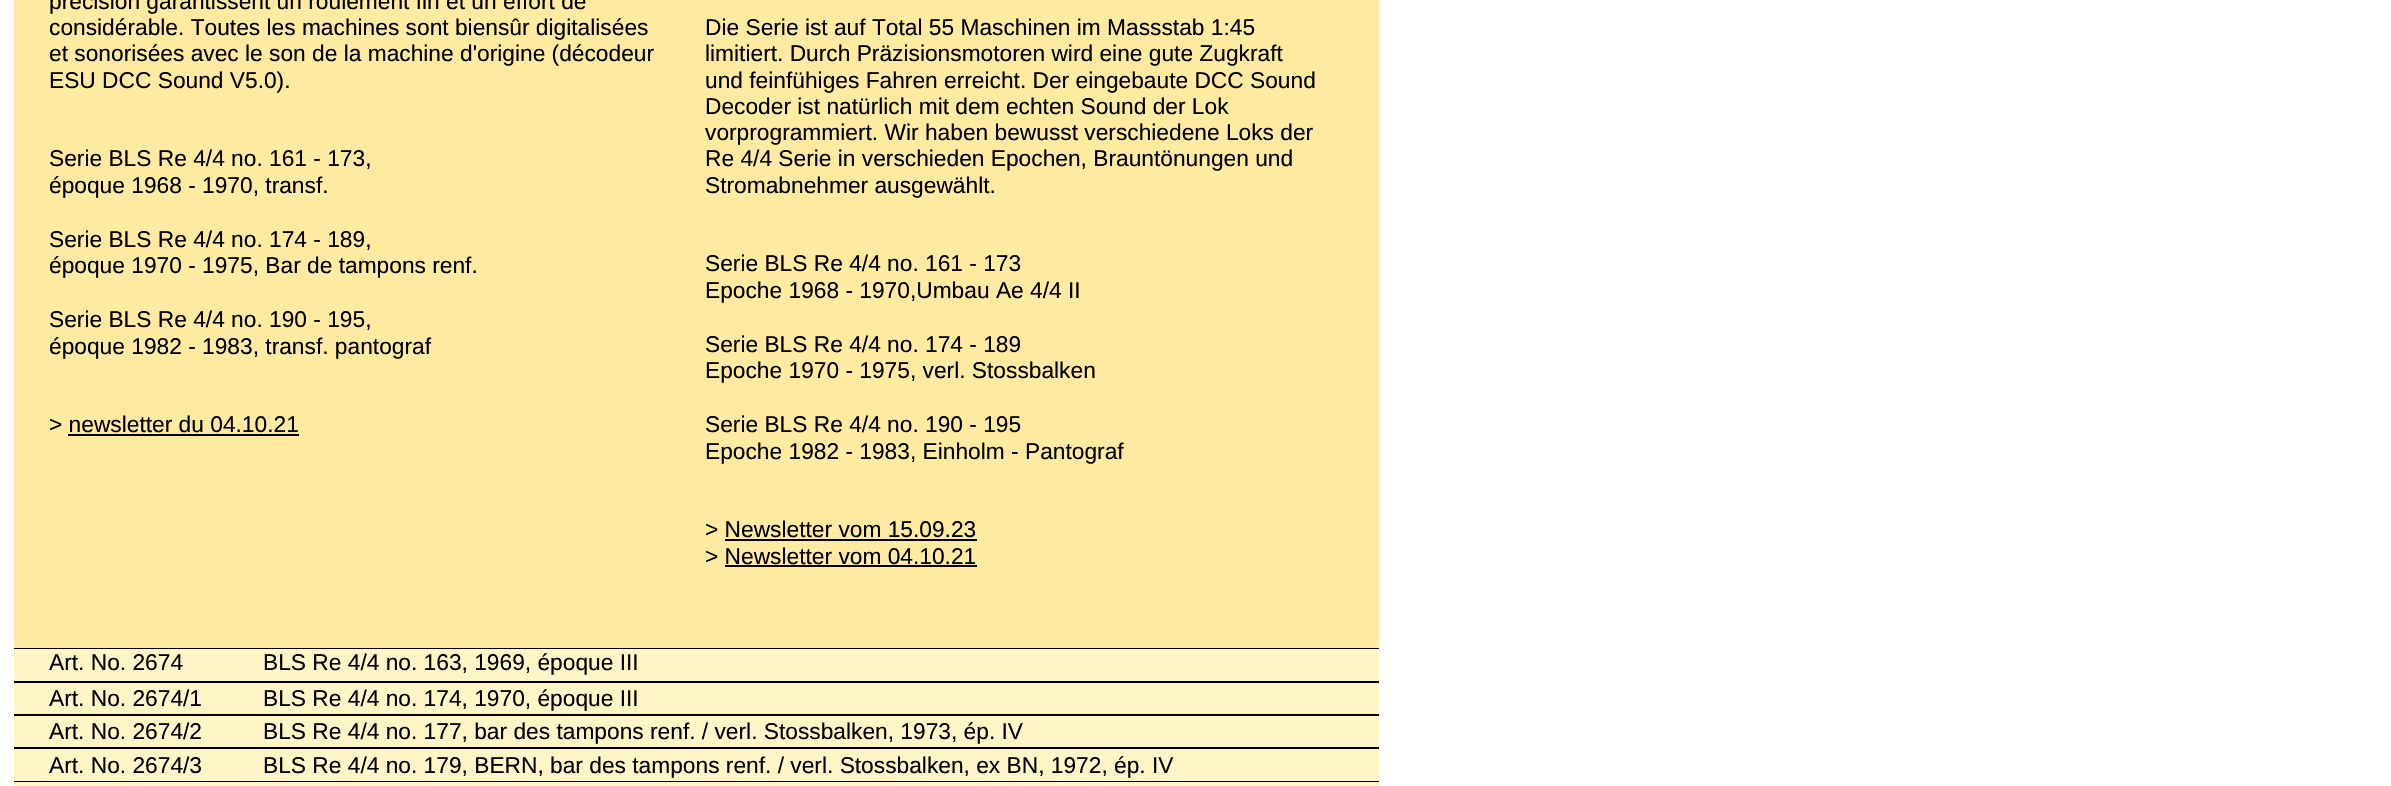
#include "include/core/SkBlurTypes.h"
#include "include/core/SkCanvas.h"
#include "include/core/SkData.h"
#include "include/core/SkFont.h"
#include "include/core/SkFontMgr.h"
#include "include/core/SkImage.h"
#include "include/core/SkMaskFilter.h"
#include "include/core/SkPaint.h"
#include "include/core/SkPathBuilder.h"
#include "include/core/SkTextBlob.h"
#include "include/effects/SkDashPathEffect.h"
#include "include/effects/SkGradientShader.h"
#include "include/utils/SkParsePath.h"

extern sk_sp<SkFontMgr> fontMgr;

static SkFont font(const char* family, int weight, float size, bool italic = false) {
    SkFontStyle style(weight, SkFontStyle::kNormal_Width,
        italic ? SkFontStyle::kItalic_Slant : SkFontStyle::kUpright_Slant);
    SkFont result(fontMgr->matchFamilyStyle(family, style), size);
    result.setSubpixel(true);
    return result;
}

static void drawLabel(SkCanvas* canvas, const char* s, float x, float y, const SkFont& font, SkColor color) {
    SkPaint ink(SkColor4f::FromColor(color));
    ink.setAntiAlias(true);
    canvas->drawString(s, x, y, font, ink);
}

static void fillRect(SkCanvas* canvas, float x, float y, float w, float h, SkColor color) {
    SkPaint ink(SkColor4f::FromColor(color));
    ink.setAntiAlias(true);
    canvas->drawRect(SkRect::MakeXYWH(x, y, w, h), ink);
}

void draw(SkCanvas* canvas) {
    SkPaint paint;
    paint.setAntiAlias(true);
    canvas->clear(0xFFFFFFFF);
    fillRect(canvas, 14, 0, 1365, 648, 0xFFFFEAA2);
    SkFont font1 = font("Liberation Sans", 400, 22.75f);
    drawLabel(canvas, "précision garantissent un roulement fin et un effort de", 49, 9, font1, 0xFF000000);
    drawLabel(canvas, "considérable. Toutes les machines sont biensûr digitalisées", 49, 35, font1, 0xFF000000);
    drawLabel(canvas, "et sonorisées avec le son de la machine d'origine (décodeur", 49, 61, font1, 0xFF000000);
    drawLabel(canvas, "ESU DCC Sound V5.0).", 49, 88, font1, 0xFF000000);
    drawLabel(canvas, "Serie BLS Re 4/4 no. 161 - 173,", 49, 166, font1, 0xFF000000);
    drawLabel(canvas, "époque 1968 - 1970, transf.", 49, 193, font1, 0xFF000000);
    drawLabel(canvas, "Serie BLS Re 4/4 no. 174 - 189,", 49, 247, font1, 0xFF000000);
    drawLabel(canvas, "époque 1970 - 1975, Bar de tampons renf.", 49, 273, font1, 0xFF000000);
    drawLabel(canvas, "Serie BLS Re 4/4 no. 190 - 195,", 49, 327, font1, 0xFF000000);
    drawLabel(canvas, "époque 1982 - 1983, transf. pantograf", 49, 354, font1, 0xFF000000);
    drawLabel(canvas, "> newsletter du 04.10.21", 49, 432, font1, 0xFF000000);
    fillRect(canvas, 68, 434, 231, 2, 0xFF000000);
    drawLabel(canvas, "Die Serie ist auf Total 55 Maschinen im Massstab 1:45", 705, 35, font1, 0xFF000000);
    drawLabel(canvas, "limitiert. Durch Präzisionsmotoren wird eine gute Zugkraft", 705, 61, font1, 0xFF000000);
    drawLabel(canvas, "und feinfühiges Fahren erreicht. Der eingebaute DCC Sound", 705, 88, font1, 0xFF000000);
    drawLabel(canvas, "Decoder ist natürlich mit dem echten Sound der Lok", 705, 114, font1, 0xFF000000);
    drawLabel(canvas, "vorprogrammiert. Wir haben bewusst verschiedene Loks der", 705, 140, font1, 0xFF000000);
    drawLabel(canvas, "Re 4/4 Serie in verschieden Epochen, Brauntönungen und", 705, 166, font1, 0xFF000000);
    drawLabel(canvas, "Stromabnehmer ausgewählt.", 705, 193, font1, 0xFF000000);
    drawLabel(canvas, "Serie BLS Re 4/4 no. 161 - 173", 705, 271, font1, 0xFF000000);
    drawLabel(canvas, "Epoche 1968 - 1970,Umbau Ae 4/4 II", 705, 298, font1, 0xFF000000);
    drawLabel(canvas, "Serie BLS Re 4/4 no. 174 - 189", 705, 352, font1, 0xFF000000);
    drawLabel(canvas, "Epoche 1970 - 1975, verl. Stossbalken", 705, 378, font1, 0xFF000000);
    drawLabel(canvas, "Serie BLS Re 4/4 no. 190 - 195", 705, 432, font1, 0xFF000000);
    drawLabel(canvas, "Epoche 1982 - 1983, Einholm - Pantograf", 705, 459, font1, 0xFF000000);
    drawLabel(canvas, "> Newsletter vom 15.09.23", 705, 537, font1, 0xFF000000);
    fillRect(canvas, 725, 539, 252, 2, 0xFF000000);
    drawLabel(canvas, "> Newsletter vom 04.10.21", 705, 564, font1, 0xFF000000);
    fillRect(canvas, 725, 565, 252, 2, 0xFF000000);
    fillRect(canvas, 14, 648, 1365, 1, 0xFF000000);
    fillRect(canvas, 14, 649, 1365, 32, 0xFFFFF5C7);
    drawLabel(canvas, "Art. No. 2674", 49, 670, font1, 0xFF000000);
    drawLabel(canvas, "BLS Re 4/4 no. 163, 1969, époque III", 263, 670, font1, 0xFF000000);
    fillRect(canvas, 14, 681, 1365, 2, 0xFF000000);
    fillRect(canvas, 14, 683, 1365, 31, 0xFFFFF5C7);
    drawLabel(canvas, "Art. No. 2674/1", 49, 706, font1, 0xFF000000);
    drawLabel(canvas, "BLS Re 4/4 no. 174, 1970, époque III", 263, 706, font1, 0xFF000000);
    fillRect(canvas, 14, 714, 1365, 2, 0xFF000000);
    fillRect(canvas, 14, 716, 1365, 31, 0xFFFFF5C7);
    drawLabel(canvas, "Art. No. 2674/2", 49, 739, font1, 0xFF000000);
    drawLabel(canvas, "BLS Re 4/4 no. 177, bar des tampons renf. / verl. Stossbalken, 1973, ép. IV", 263, 739, font1, 0xFF000000);
    fillRect(canvas, 14, 747, 1365, 2, 0xFF000000);
    fillRect(canvas, 14, 749, 1365, 32, 0xFFFFF5C7);
    drawLabel(canvas, "Art. No. 2674/3", 49, 773, font1, 0xFF000000);
    drawLabel(canvas, "BLS Re 4/4 no. 179, BERN, bar des tampons renf. / verl. Stossbalken, ex BN, 1972, ép. IV", 263, 773, font1, 0xFF000000);
    fillRect(canvas, 14, 781, 1365, 1, 0xFF000000);
    fillRect(canvas, 14, 782, 1365, 4, 0xFFFFF5C7);
}
